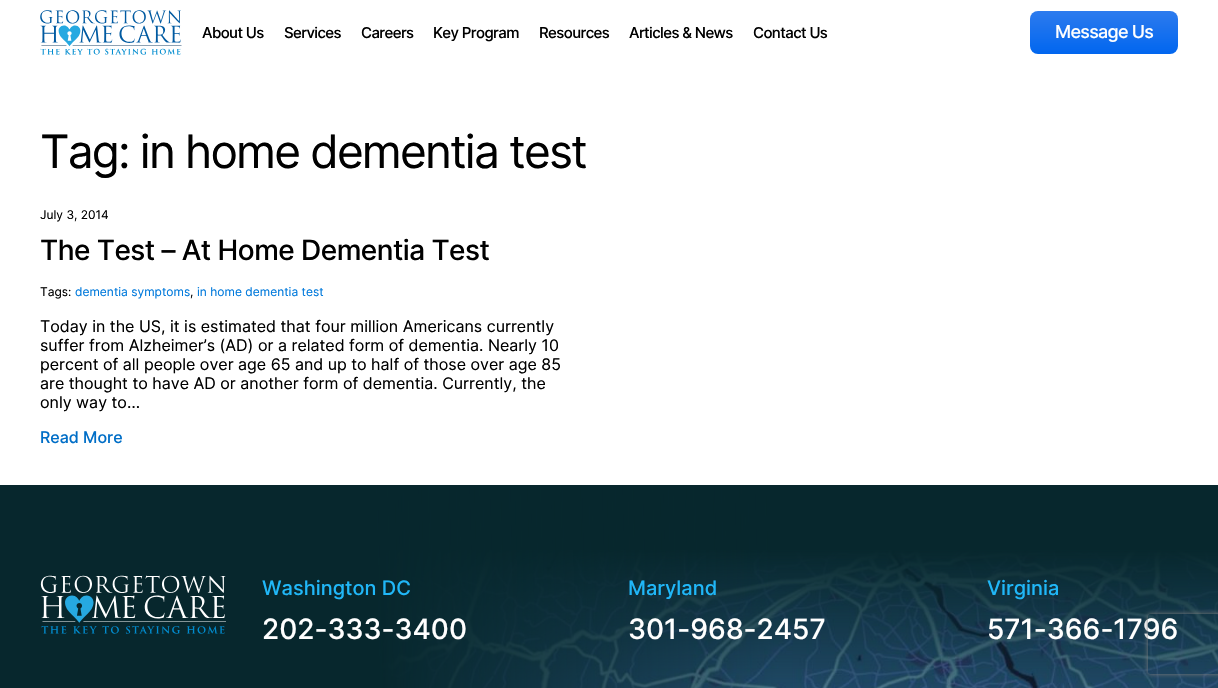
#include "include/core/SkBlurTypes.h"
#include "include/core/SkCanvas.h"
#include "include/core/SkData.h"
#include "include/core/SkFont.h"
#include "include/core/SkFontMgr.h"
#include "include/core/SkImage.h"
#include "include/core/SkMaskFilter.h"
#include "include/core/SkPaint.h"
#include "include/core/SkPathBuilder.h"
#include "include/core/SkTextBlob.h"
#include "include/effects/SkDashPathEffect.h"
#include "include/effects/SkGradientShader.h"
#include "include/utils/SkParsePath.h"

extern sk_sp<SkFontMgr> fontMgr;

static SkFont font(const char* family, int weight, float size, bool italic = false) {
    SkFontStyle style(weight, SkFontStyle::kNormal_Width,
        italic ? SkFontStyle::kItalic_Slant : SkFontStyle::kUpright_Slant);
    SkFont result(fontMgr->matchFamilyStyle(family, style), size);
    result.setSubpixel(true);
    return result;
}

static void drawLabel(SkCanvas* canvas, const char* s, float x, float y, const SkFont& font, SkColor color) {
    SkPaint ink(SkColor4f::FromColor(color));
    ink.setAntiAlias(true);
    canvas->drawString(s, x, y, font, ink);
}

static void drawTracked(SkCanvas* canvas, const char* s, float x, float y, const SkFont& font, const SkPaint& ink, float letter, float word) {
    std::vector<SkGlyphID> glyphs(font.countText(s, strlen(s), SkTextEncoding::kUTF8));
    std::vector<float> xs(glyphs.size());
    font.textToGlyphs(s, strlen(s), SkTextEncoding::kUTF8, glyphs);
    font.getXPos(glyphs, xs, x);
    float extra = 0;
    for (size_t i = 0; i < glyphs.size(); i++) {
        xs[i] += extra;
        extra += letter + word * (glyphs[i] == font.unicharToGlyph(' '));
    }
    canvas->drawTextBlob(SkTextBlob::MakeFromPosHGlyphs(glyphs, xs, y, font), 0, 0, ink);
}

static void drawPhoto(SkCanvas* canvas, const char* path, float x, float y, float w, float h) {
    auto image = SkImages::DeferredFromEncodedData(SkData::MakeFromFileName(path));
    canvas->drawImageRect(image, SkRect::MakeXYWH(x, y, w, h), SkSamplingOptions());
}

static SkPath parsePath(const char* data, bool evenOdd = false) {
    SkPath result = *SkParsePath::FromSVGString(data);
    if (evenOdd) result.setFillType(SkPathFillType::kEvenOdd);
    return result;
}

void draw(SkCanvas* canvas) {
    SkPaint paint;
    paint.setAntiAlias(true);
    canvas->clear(0xFFFFFFFF);
    drawPhoto(canvas, "assets/img1.png", 40, 10, 142, 45);
    SkFont font1 = font("Inter", 500, 15);
    paint.setColor(0xFF000000);
    drawTracked(canvas, "About Us", 202, 38, font1, paint, -0.6f, 0);
    drawTracked(canvas, "Services", 284, 38, font1, paint, -0.6f, 0);
    drawTracked(canvas, "Careers", 361, 38, font1, paint, -0.6f, 0);
    drawTracked(canvas, "Key Program", 433, 38, font1, paint, -0.6f, 0);
    drawTracked(canvas, "Resources", 539, 38, font1, paint, -0.6f, 0);
    drawTracked(canvas, "Articles & News", 629, 38, font1, paint, -0.6f, 0);
    drawTracked(canvas, "Contact Us", 753, 38, font1, paint, -0.6f, 0);
    {
        const SkColor colors[] = {0xFF2C7BEE, 0xFF0166EF};
        const float stops[] = {0, 1};
        const SkPoint ends[] = {{1104, 11}, {1104, 54}};
        paint.setShader(SkGradientShader::MakeLinear(ends, colors, stops, 2, SkTileMode::kClamp));
        paint.setAlpha(255);
    }
    canvas->drawRoundRect(SkRect::MakeXYWH(1030, 11, 148, 43), 8, 8, paint);
    SkFont font2 = font("Inter", 500, 18);
    paint.setShader(nullptr);
    paint.setColor(0xFFFFFFFF);
    drawTracked(canvas, "Message Us", 1055, 38, font2, paint, -0.75f, 0);
    SkFont font3 = font("Inter", 400, 46);
    paint.setColor(0xFF000000);
    drawTracked(canvas, "Tag: in home dementia test", 40, 168, font3, paint, -1.85f, 0);
    SkFont font4 = font("Inter", 400, 12);
    drawLabel(canvas, "July 3, 2014", 40, 219, font4, 0xFF000000);
    SkFont font5 = font("Inter", 500, 28);
    drawTracked(canvas, "The Test – At Home Dementia Test", 40, 260, font5, paint, -0.55f, 0);
    drawLabel(canvas, "Tags:", 40, 296, font4, 0xFF000000);
    drawLabel(canvas, "dementia symptoms", 75, 296, font4, 0xFF0079DC);
    drawLabel(canvas, ",", 190, 296, font4, 0xFF000000);
    drawLabel(canvas, "in home dementia test", 197, 296, font4, 0xFF0079DC);
    SkFont font6 = font("Inter", 400, 16);
    drawLabel(canvas, "Today in the US, it is estimated that four million Americans currently", 40, 332, font6, 0xFF000000);
    drawLabel(canvas, "suffer from Alzheimer’s (AD) or a related form of dementia. Nearly 10", 40, 351, font6, 0xFF000000);
    drawLabel(canvas, "percent of all people over age 65 and up to half of those over age 85", 40, 370, font6, 0xFF000000);
    drawLabel(canvas, "are thought to have AD or another form of dementia. Currently, the", 40, 389, font6, 0xFF000000);
    drawLabel(canvas, "only way to…", 40, 408, font6, 0xFF000000);
    SkFont font7 = font("Inter", 500, 16);
    drawLabel(canvas, "Read More", 40, 443, font7, 0xFF006EC7);
    drawPhoto(canvas, "assets/img2.png", 0, 485, 1218, 203);
    drawPhoto(canvas, "assets/img3.png", 40, 575, 186, 59);
    SkFont font8 = font("Inter", 500, 20);
    drawLabel(canvas, "Washington DC", 262, 595, font8, 0xFF20B7F8);
    drawLabel(canvas, "202-333-3400", 262, 639, font5, 0xFFFFFFFF);
    drawLabel(canvas, "Maryland", 628, 595, font8, 0xFF20B7F8);
    drawLabel(canvas, "301-968-2457", 628, 639, font5, 0xFFFFFFFF);
    drawLabel(canvas, "Virginia", 987, 595, font8, 0xFF20B7F8);
    drawLabel(canvas, "571-366-1796", 987, 639, font5, 0xFFFFFFFF);
    canvas->save();
    canvas->clipPath(parsePath("M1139 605H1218V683H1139ZM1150 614H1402C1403 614 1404 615 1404 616V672C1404 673 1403 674 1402 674H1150C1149 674 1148 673 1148 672V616C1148 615 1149 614 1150 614Z", true), true);
    paint.setColor(0xFF808080);
    paint.setMaskFilter(SkMaskFilter::MakeBlur(kNormal_SkBlurStyle, 2.5f));
    canvas->drawRoundRect(SkRect::MakeXYWH(1148, 614, 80, 60), 2, 2, paint);
    paint.setMaskFilter(nullptr);
    canvas->restore();
}
